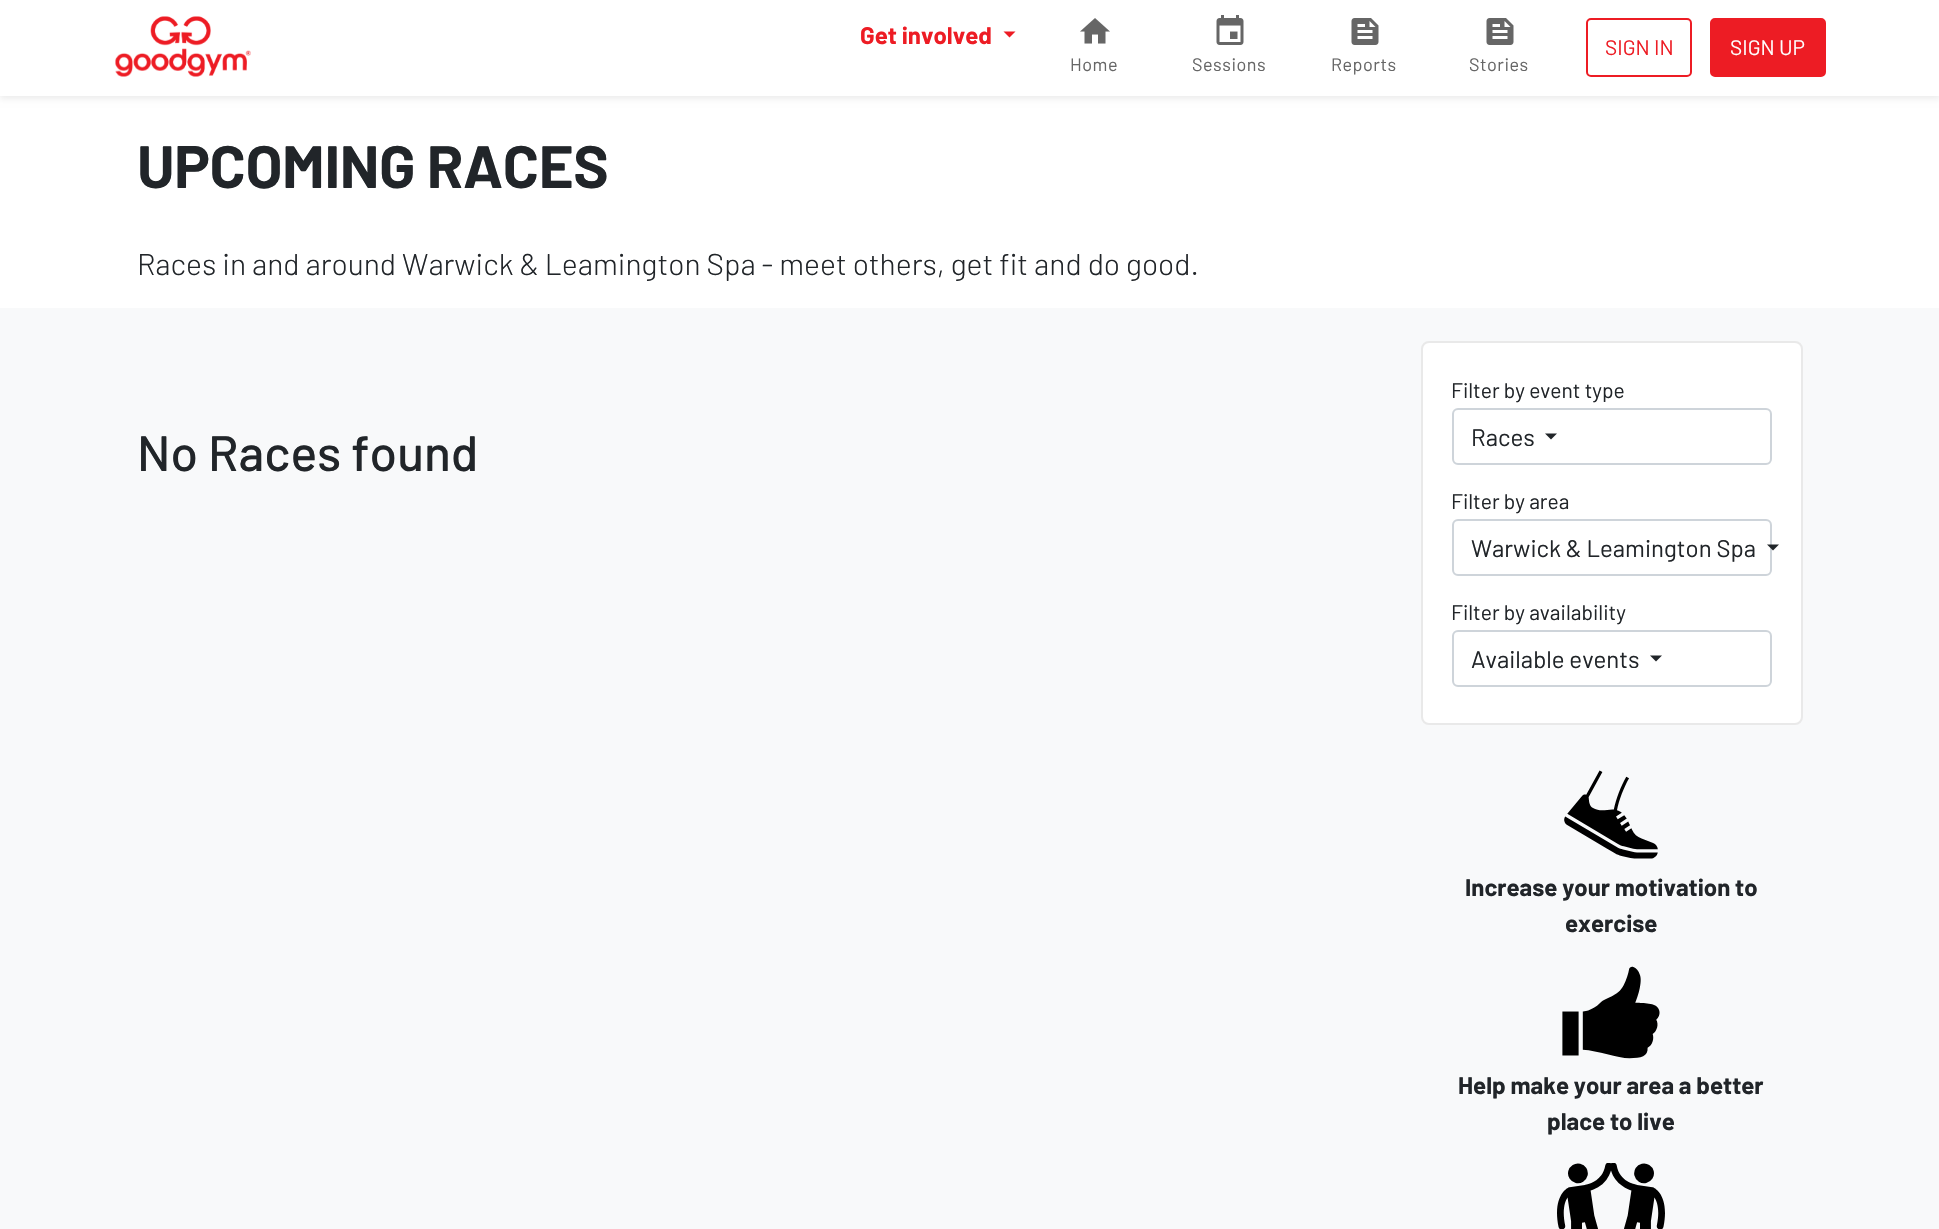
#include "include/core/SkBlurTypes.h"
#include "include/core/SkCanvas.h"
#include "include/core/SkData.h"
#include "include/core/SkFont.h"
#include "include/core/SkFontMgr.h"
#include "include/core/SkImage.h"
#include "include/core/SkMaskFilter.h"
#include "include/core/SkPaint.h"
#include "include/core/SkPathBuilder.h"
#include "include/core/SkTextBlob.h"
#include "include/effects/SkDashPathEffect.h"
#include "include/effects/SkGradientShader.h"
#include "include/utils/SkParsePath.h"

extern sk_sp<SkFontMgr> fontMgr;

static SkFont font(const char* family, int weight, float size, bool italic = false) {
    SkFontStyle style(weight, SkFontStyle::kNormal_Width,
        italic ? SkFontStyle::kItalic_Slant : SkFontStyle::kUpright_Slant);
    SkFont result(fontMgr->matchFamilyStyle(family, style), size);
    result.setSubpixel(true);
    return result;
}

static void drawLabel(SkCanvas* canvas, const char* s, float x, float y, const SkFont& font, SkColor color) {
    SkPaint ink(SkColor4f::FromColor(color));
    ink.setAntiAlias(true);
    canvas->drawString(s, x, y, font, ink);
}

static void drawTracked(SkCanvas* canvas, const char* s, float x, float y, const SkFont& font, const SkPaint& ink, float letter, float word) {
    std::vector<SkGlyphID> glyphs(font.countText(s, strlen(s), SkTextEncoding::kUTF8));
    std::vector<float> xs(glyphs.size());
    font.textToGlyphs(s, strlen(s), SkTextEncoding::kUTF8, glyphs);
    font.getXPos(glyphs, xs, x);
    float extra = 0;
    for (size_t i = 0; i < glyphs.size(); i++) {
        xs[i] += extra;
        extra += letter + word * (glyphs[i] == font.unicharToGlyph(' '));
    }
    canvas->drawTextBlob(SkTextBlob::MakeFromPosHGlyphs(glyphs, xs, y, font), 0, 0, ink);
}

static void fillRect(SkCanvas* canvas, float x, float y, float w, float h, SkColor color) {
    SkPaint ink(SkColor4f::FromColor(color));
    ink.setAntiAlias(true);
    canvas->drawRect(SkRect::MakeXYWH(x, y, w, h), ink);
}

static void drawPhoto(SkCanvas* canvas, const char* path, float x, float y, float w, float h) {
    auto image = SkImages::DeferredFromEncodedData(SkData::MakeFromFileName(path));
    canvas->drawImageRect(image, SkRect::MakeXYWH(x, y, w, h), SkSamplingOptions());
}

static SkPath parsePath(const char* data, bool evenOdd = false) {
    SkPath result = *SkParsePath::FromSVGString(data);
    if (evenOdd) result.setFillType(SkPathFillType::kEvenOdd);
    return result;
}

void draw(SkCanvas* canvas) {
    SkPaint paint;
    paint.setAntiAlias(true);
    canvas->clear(0xFFFFFFFF);
    paint.setColor(0x12000000);
    paint.setMaskFilter(SkMaskFilter::MakeBlur(kNormal_SkBlurStyle, 3));
    canvas->drawRect(SkRect::MakeXYWH(0, 3, 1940, 96), paint);
    paint.setMaskFilter(nullptr);
    fillRect(canvas, 0, 0, 1939, 96, 0xFFFFFFFF);
    drawPhoto(canvas, "assets/img1.png", 115, 16, 136, 61);
    SkFont font1 = font("Barlow", 700, 24);
    drawLabel(canvas, "Get involved", 860, 44, font1, 0xFFED1C24);
    paint.setColor(0xFFED1C24);
    canvas->drawPath(parsePath("M1003.5 31.5H1015.5L1009.5 37.5Z"), paint);
    drawPhoto(canvas, "assets/img2.png", 1080, 18, 30, 26);
    SkFont font2 = font("Barlow", 400, 18);
    paint.setColor(0xFF666666);
    drawTracked(canvas, "Home", 1070, 71, font2, paint, 0.5f, 0);
    drawPhoto(canvas, "assets/img3.png", 1216, 15, 28, 30);
    drawTracked(canvas, "Sessions", 1192, 71, font2, paint, 0.5f, 0);
    drawPhoto(canvas, "assets/img4.png", 1351, 18, 28, 27);
    drawTracked(canvas, "Reports", 1331, 71, font2, paint, 0.5f, 0);
    drawPhoto(canvas, "assets/img4.png", 1486, 18, 28, 27);
    drawTracked(canvas, "Stories", 1469, 71, font2, paint, 0.5f, 0);
    paint.setStroke(true);
    paint.setStrokeWidth(2);
    paint.setColor(0xFFED1C24);
    canvas->drawRoundRect(SkRect::MakeXYWH(1587, 19, 104, 57), 4, 4, paint);
    SkFont font3 = font("Barlow", 400, 21);
    drawLabel(canvas, "SIGN IN", 1605, 55, font3, 0xFFED1C24);
    paint.setStroke(false);
    canvas->drawRoundRect(SkRect::MakeXYWH(1711, 19, 114, 57), 4, 4, paint);
    paint.setStroke(true);
    canvas->drawRoundRect(SkRect::MakeXYWH(1711, 19, 114, 57), 4, 4, paint);
    drawLabel(canvas, "SIGN UP", 1730, 55, font3, 0xFFFFFFFF);
    SkFont font4 = font("Barlow", 700, 59.75f);
    paint.setStroke(false);
    paint.setColor(0xFF212529);
    drawTracked(canvas, "UPCOMING RACES", 137, 188, font4, paint, -0.4f, 0);
    SkFont font5 = font("Barlow", 300, 30);
    drawLabel(canvas, "Races in and around Warwick & Leamington Spa - meet others, get fit and do good.", 137, 275, font5, 0xFF212529);
    fillRect(canvas, 0, 308, 1939, 921, 0xFFF8F9FA);
    SkFont font6 = font("Barlow", 500, 49.75f);
    drawLabel(canvas, "No Races found", 137, 471, font6, 0xFF212529);
    paint.setColor(0xFFFFFFFF);
    canvas->drawRoundRect(SkRect::MakeXYWH(1422, 342, 380, 382), 7, 7, paint);
    paint.setStroke(true);
    paint.setColor(0xFFE9E9E9);
    canvas->drawRoundRect(SkRect::MakeXYWH(1422, 342, 380, 382), 7, 7, paint);
    drawLabel(canvas, "Filter by event type", 1451, 398, font3, 0xFF212529);
    paint.setColor(0xFFCED4DA);
    canvas->drawRoundRect(SkRect::MakeXYWH(1453, 409, 318, 55), 5, 5, paint);
    SkFont font7 = font("Barlow", 400, 24);
    drawLabel(canvas, "Races", 1471, 446, font7, 0xFF212529);
    paint.setStroke(false);
    paint.setColor(0xFF212529);
    canvas->drawPath(parsePath("M1545 433.5H1557L1551 439.5Z"), paint);
    drawLabel(canvas, "Filter by area", 1451, 509, font3, 0xFF212529);
    paint.setStroke(true);
    paint.setColor(0xFFCED4DA);
    canvas->drawRoundRect(SkRect::MakeXYWH(1453, 520, 318, 55), 5, 5, paint);
    drawLabel(canvas, "Warwick & Leamington Spa", 1471, 557, font7, 0xFF212529);
    paint.setStroke(false);
    paint.setColor(0xFF212529);
    canvas->drawPath(parsePath("M1767 544.5H1779L1773 550.5Z"), paint);
    drawLabel(canvas, "Filter by availability", 1451, 620, font3, 0xFF212529);
    paint.setStroke(true);
    paint.setColor(0xFFCED4DA);
    canvas->drawRoundRect(SkRect::MakeXYWH(1453, 631, 318, 55), 5, 5, paint);
    drawLabel(canvas, "Available events", 1471, 668, font7, 0xFF212529);
    paint.setStroke(false);
    paint.setColor(0xFF212529);
    canvas->drawPath(parsePath("M1650 655.5H1662L1656 661.5Z"), paint);
    drawPhoto(canvas, "assets/img5.png", 1564, 770, 94, 89);
    drawLabel(canvas, "Increase your motivation to", 1465, 896, font1, 0xFF212529);
    drawLabel(canvas, "exercise", 1565, 932, font1, 0xFF212529);
    drawPhoto(canvas, "assets/img6.png", 1562, 966, 98, 93);
    drawLabel(canvas, "Help make your area a better", 1458, 1094, font1, 0xFF212529);
    drawLabel(canvas, "place to live", 1547, 1130, font1, 0xFF212529);
    drawPhoto(canvas, "assets/img7.png", 1557, 1163, 108, 66);
}
